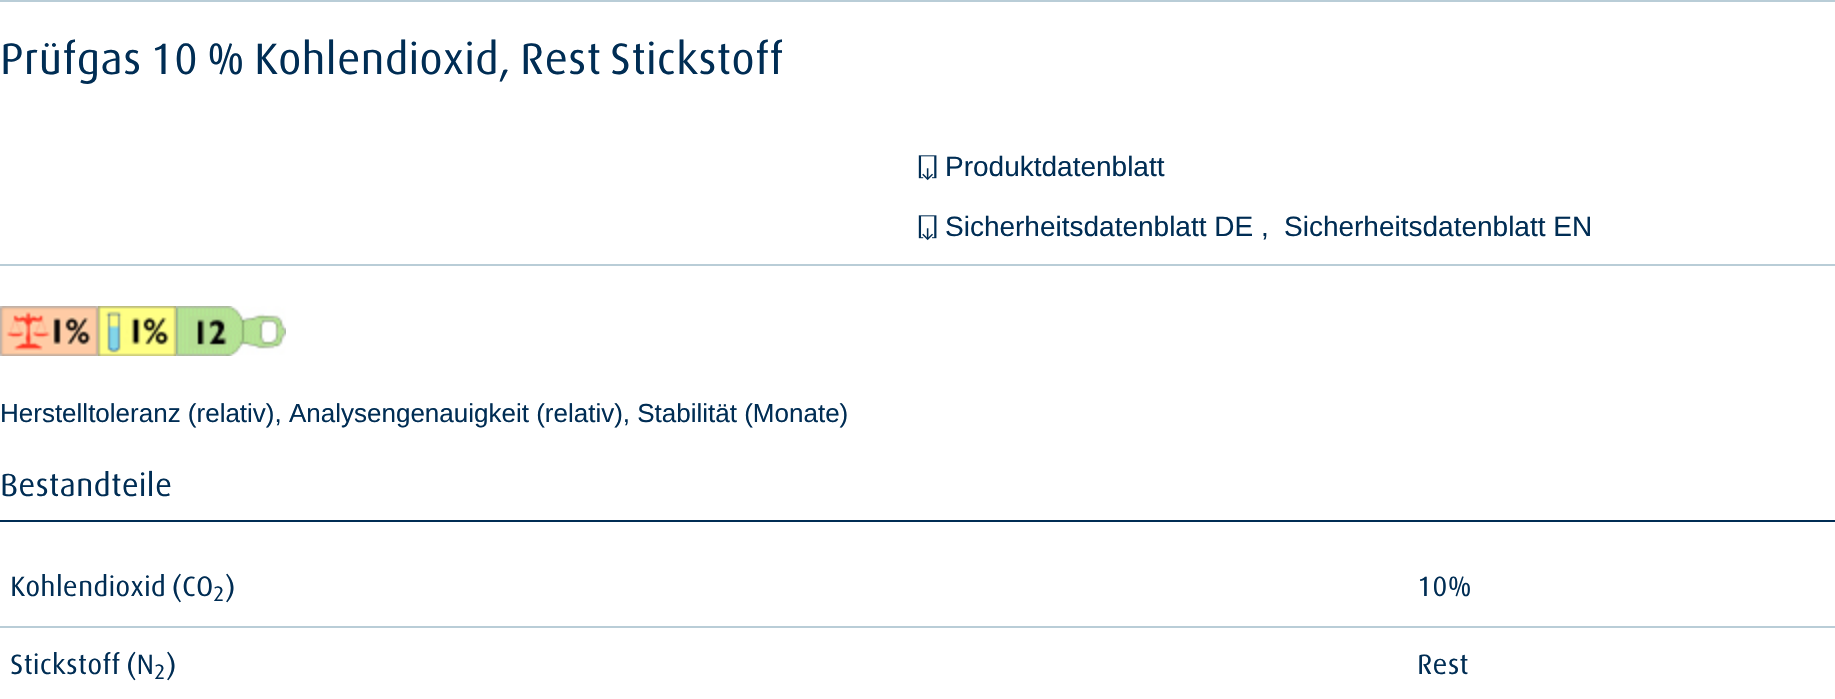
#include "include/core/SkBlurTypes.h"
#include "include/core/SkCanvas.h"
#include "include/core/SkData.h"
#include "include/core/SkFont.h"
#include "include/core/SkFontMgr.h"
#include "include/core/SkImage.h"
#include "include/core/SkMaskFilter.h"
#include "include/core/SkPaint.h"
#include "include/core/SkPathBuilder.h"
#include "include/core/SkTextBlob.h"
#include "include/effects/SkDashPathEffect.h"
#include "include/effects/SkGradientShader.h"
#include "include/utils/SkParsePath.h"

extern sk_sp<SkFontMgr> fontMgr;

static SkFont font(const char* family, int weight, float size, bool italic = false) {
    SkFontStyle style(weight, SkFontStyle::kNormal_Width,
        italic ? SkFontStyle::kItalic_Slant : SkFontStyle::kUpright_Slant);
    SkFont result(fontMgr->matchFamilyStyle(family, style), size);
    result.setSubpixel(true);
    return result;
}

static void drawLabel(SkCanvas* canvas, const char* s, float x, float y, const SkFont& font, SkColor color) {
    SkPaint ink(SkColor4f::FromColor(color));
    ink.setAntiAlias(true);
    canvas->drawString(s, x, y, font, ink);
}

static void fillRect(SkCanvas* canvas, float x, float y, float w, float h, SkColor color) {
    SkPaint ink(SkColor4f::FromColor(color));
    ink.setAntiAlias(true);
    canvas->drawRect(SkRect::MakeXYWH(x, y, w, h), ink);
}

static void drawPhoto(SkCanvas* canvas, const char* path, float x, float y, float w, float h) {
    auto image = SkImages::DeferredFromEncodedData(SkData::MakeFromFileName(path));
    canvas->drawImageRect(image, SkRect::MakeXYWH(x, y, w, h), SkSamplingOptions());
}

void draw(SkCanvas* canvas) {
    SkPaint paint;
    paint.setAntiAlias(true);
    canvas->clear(0xFFFFFFFF);
    fillRect(canvas, 0, 0, 1835, 2, 0xFFB9CDD7);
    fillRect(canvas, 0, 264, 1835, 2, 0xFFB9CDD7);
    SkFont font1 = font("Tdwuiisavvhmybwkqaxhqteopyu", 500, 44);
    drawLabel(canvas, "Prüfgas 10 % Kohlendioxid, Rest Stickstoff", 0, 74, font1, 0xFF002D54);
    drawPhoto(canvas, "assets/img1.png", 918, 155, 19, 26);
    SkFont font2 = font("Liberation Sans", 400, 28);
    drawLabel(canvas, "Produktdatenblatt", 945, 176, font2, 0xFF002D54);
    drawPhoto(canvas, "assets/img1.png", 918, 215, 19, 26);
    drawLabel(canvas, "Sicherheitsdatenblatt DE ,", 945, 236, font2, 0xFF002D54);
    drawLabel(canvas, "Sicherheitsdatenblatt EN", 1284, 236, font2, 0xFF002D54);
    drawPhoto(canvas, "assets/img2.png", 0, 306, 98, 50);
    drawPhoto(canvas, "assets/img3.png", 98, 306, 78, 50);
    drawPhoto(canvas, "assets/img4.png", 176, 306, 110, 50);
    SkFont font3 = font("Liberation Sans", 400, 26);
    drawLabel(canvas, "Herstelltoleranz (relativ), Analysengenauigkeit (relativ), Stabilität (Monate)", 0, 422, font3, 0xFF002D54);
    fillRect(canvas, 0, 520, 1835, 2, 0xFF002D54);
    SkFont font4 = font("Tdwuiisavvhmybwkqaxhqteopyu", 500, 32);
    drawLabel(canvas, "Bestandteile", 0, 496, font4, 0xFF002D54);
    fillRect(canvas, 0, 626, 1835, 2, 0xFFB9CDD7);
    SkFont font5 = font("Tdwuiisavvhmybwkqaxhqteopyu", 500, 28);
    drawLabel(canvas, "Kohlendioxid (CO", 10, 596, font5, 0xFF002D54);
    SkFont font6 = font("Tdwuiisavvhmybwkqaxhqteopyu", 500, 21);
    drawLabel(canvas, "2", 213, 601, font6, 0xFF002D54);
    drawLabel(canvas, ")", 225, 596, font5, 0xFF002D54);
    drawLabel(canvas, "10%", 1417, 596, font5, 0xFF002D54);
    drawLabel(canvas, "Stickstoff (N", 10, 674, font5, 0xFF002D54);
    drawLabel(canvas, "2", 154, 679, font6, 0xFF002D54);
    drawLabel(canvas, ")", 166, 674, font5, 0xFF002D54);
    drawLabel(canvas, "Rest", 1417, 674, font5, 0xFF002D54);
}
